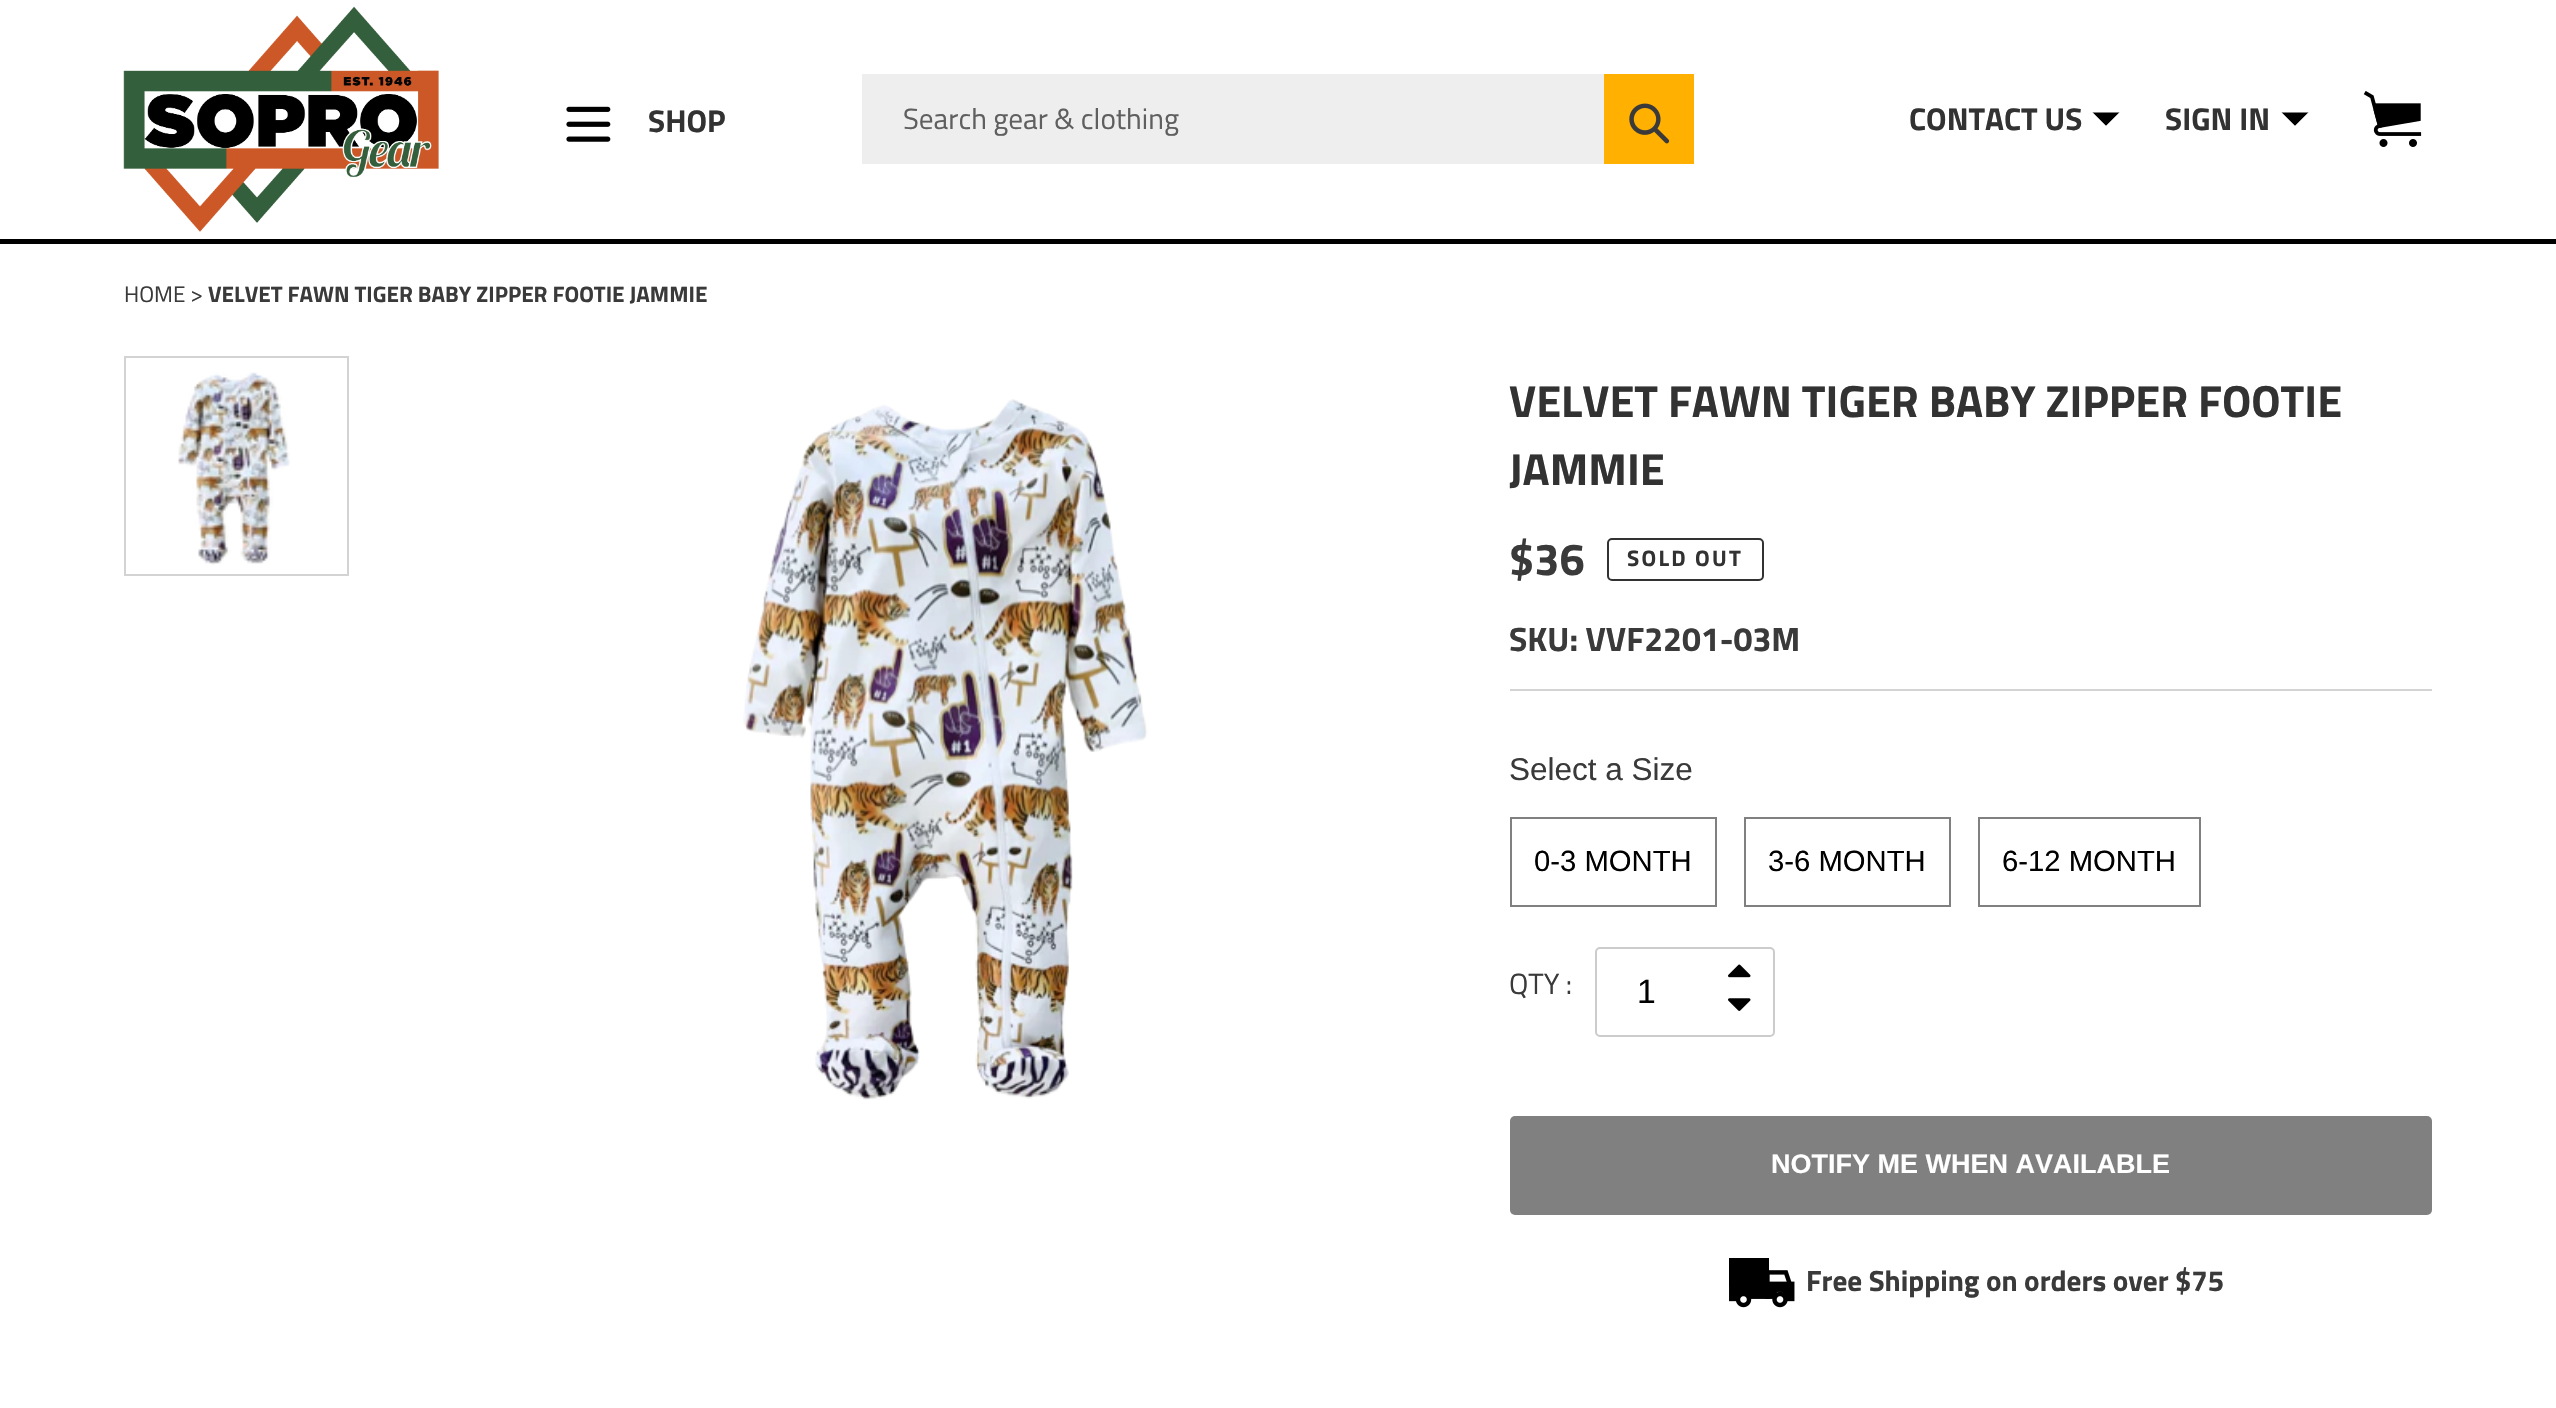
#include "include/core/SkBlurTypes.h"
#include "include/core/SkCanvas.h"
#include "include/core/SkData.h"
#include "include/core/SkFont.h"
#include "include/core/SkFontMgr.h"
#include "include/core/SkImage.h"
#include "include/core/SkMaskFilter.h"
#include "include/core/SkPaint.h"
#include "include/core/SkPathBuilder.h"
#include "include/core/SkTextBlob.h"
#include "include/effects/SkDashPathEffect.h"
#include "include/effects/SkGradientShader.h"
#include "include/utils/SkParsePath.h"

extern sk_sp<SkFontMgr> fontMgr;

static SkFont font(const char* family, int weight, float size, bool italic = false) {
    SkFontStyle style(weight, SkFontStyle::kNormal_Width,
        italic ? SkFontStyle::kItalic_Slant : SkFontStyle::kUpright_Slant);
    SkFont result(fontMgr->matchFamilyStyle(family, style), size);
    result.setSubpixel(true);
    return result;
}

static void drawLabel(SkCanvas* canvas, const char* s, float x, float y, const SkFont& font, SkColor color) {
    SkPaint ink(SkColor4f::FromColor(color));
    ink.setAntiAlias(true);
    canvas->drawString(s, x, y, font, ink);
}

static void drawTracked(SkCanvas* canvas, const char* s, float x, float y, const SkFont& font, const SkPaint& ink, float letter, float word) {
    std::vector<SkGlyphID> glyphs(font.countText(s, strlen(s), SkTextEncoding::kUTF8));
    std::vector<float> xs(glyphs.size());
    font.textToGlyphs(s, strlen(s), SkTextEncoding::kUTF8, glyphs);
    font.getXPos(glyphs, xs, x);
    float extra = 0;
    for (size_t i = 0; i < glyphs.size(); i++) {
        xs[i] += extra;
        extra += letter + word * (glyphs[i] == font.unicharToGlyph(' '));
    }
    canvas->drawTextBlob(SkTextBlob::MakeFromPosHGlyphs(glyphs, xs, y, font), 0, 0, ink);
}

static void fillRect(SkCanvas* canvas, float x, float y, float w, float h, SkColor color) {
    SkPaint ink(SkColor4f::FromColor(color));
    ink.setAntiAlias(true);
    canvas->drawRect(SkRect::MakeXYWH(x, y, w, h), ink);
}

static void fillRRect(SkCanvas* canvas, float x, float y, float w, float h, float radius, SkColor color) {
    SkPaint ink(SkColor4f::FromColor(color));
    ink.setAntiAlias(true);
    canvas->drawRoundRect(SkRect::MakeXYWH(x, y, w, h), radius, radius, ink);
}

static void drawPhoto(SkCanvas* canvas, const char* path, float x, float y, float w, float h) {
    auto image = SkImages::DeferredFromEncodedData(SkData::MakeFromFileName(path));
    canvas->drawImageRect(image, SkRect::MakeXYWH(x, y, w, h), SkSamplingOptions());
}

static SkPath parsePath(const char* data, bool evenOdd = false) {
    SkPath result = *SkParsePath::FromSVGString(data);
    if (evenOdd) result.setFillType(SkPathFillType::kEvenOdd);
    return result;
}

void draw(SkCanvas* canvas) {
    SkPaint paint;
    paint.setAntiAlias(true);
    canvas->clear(0xFFFFFFFF);
    fillRect(canvas, 0, 239, 2556, 5, 0xFF000000);
    drawPhoto(canvas, "assets/img1.png", 123, 6, 316, 226);
    drawPhoto(canvas, "assets/img2.png", 566, 106, 45, 36);
    SkFont font1 = font("Cairo", 700, 31.5f);
    drawLabel(canvas, "SHOP", 648, 132, font1, 0xFF333232);
    fillRect(canvas, 862, 74, 742, 90, 0xFFEEEEEE);
    SkFont font2 = font("Cairo", 400, 29.25f);
    drawLabel(canvas, "Search gear & clothing", 903, 129, font2, 0xFF5F5F5F);
    fillRect(canvas, 1604, 74, 90, 90, 0xFFFFB000);
    drawPhoto(canvas, "assets/img3.png", 1629, 103, 41, 41);
    drawLabel(canvas, "CONTACT US", 1909, 130, font1, 0xFF333232);
    paint.setColor(0xFF000000);
    canvas->drawPath(parsePath("M2092.5 112.5H2119.5L2106 126Z"), paint);
    paint.setColor(0xFFFFFFFF);
    canvas->drawPath(parsePath("M2119.5 112.5V126H2106ZM2092.5 126V112.5L2106 126Z"), paint);
    drawLabel(canvas, "SIGN IN", 2165, 130, font1, 0xFF333232);
    paint.setColor(0xFF000000);
    canvas->drawPath(parsePath("M2281.5 112.5H2308.5L2295 126Z"), paint);
    paint.setColor(0xFFFFFFFF);
    canvas->drawPath(parsePath("M2308.5 112.5V126H2295ZM2281.5 126V112.5L2295 126Z"), paint);
    drawPhoto(canvas, "assets/img4.png", 2363, 91, 59, 56);
    SkFont font3 = font("Cairo", 400, 22.5f);
    drawLabel(canvas, "HOME >", 124, 302, font3, 0xFF3A3A3A);
    SkFont font4 = font("Cairo", 700, 22.5f);
    drawLabel(canvas, "VELVET FAWN TIGER BABY ZIPPER FOOTIE JAMMIE", 208, 302, font4, 0xFF3A3A3A);
    paint.setStroke(true);
    paint.setStrokeWidth(2);
    paint.setColor(0xFFD3D3D3);
    canvas->drawRect(SkRect::MakeXYWH(125, 357, 223, 218), paint);
    drawPhoto(canvas, "assets/img5.png", 178, 372, 112, 193);
    drawPhoto(canvas, "assets/img6.png", 743, 399, 405, 701);
    fillRect(canvas, 1510, 689, 922, 2, 0xFFD3D3D3);
    SkFont font5 = font("Cairo", 700, 45);
    drawLabel(canvas, "VELVET FAWN TIGER BABY ZIPPER FOOTIE", 1509, 417, font5, 0xFF333232);
    drawLabel(canvas, "JAMMIE", 1509, 485, font5, 0xFF333232);
    drawLabel(canvas, "$36", 1509, 575, font5, 0xFF3A3A3A);
    paint.setColor(0xFF333232);
    canvas->drawRoundRect(SkRect::MakeXYWH(1608, 539, 155, 41), 4, 4, paint);
    paint.setStroke(false);
    drawTracked(canvas, "SOLD OUT", 1627, 566, font4, paint, 2.25f, 0);
    SkFont font6 = font("Cairo", 700, 33.75f);
    drawLabel(canvas, "SKU: VVF2201-03M", 1509, 651, font6, 0xFF3A3A3A);
    SkFont font7 = font("Liberation Sans", 400, 31.5f);
    drawLabel(canvas, "Select a Size", 1509, 780, font7, 0xFF3A3A3A);
    paint.setStroke(true);
    paint.setColor(0xFF808080);
    canvas->drawRect(SkRect::MakeXYWH(1511, 818, 205, 88), paint);
    SkFont font8 = font("Liberation Sans", 400, 29.25f);
    drawLabel(canvas, "0-3 MONTH", 1534, 871, font8, 0xFF000000);
    canvas->drawRect(SkRect::MakeXYWH(1745, 818, 205, 88), paint);
    drawLabel(canvas, "3-6 MONTH", 1768, 871, font8, 0xFF000000);
    canvas->drawRect(SkRect::MakeXYWH(1979, 818, 221, 88), paint);
    drawLabel(canvas, "6-12 MONTH", 2002, 871, font8, 0xFF000000);
    drawLabel(canvas, "QTY :", 1509, 994, font2, 0xFF3A3A3A);
    paint.setColor(0xFFCCCCCC);
    canvas->drawRoundRect(SkRect::MakeXYWH(1596, 948, 178, 88), 4, 4, paint);
    SkFont font9 = font("Liberation Sans", 400, 33.75f);
    drawLabel(canvas, "1", 1637, 1003, font9, 0xFF000000);
    drawPhoto(canvas, "assets/img7.png", 1728, 964, 23, 14);
    drawPhoto(canvas, "assets/img8.png", 1728, 998, 23, 13);
    fillRRect(canvas, 1510, 1116, 922, 99, 5, 0xFF808080);
    SkFont font10 = font("Liberation Sans", 700, 27);
    drawLabel(canvas, "NOTIFY ME WHEN AVAILABLE", 1771, 1173, font10, 0xFFFFFFFF);
    drawPhoto(canvas, "assets/img9.png", 1729, 1258, 66, 50);
    SkFont font11 = font("Cairo", 700, 29.25f);
    drawLabel(canvas, "Free Shipping on orders over $75", 1806, 1291, font11, 0xFF3A3A3A);
}
